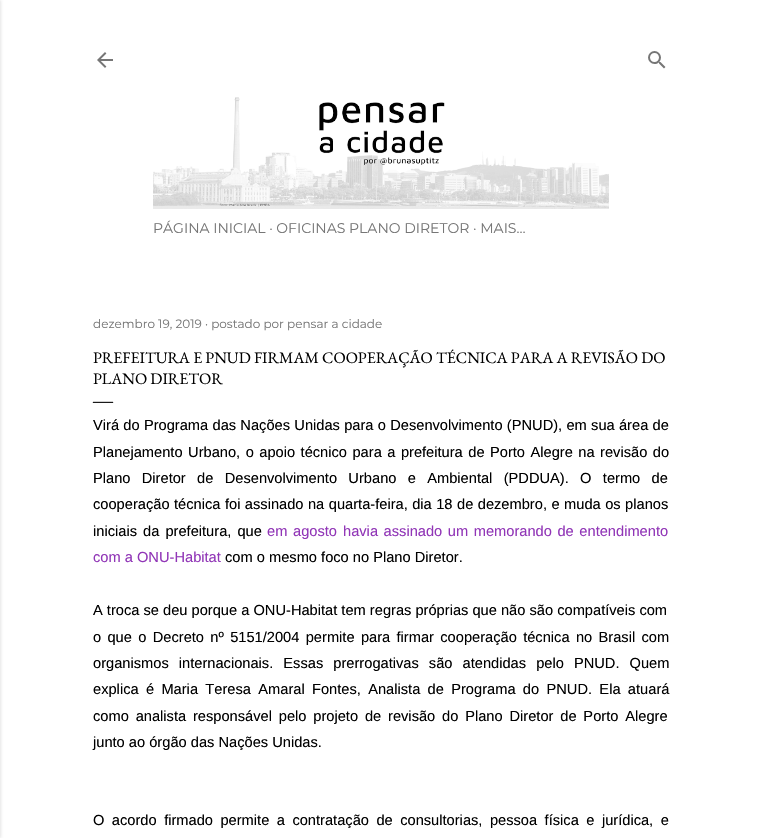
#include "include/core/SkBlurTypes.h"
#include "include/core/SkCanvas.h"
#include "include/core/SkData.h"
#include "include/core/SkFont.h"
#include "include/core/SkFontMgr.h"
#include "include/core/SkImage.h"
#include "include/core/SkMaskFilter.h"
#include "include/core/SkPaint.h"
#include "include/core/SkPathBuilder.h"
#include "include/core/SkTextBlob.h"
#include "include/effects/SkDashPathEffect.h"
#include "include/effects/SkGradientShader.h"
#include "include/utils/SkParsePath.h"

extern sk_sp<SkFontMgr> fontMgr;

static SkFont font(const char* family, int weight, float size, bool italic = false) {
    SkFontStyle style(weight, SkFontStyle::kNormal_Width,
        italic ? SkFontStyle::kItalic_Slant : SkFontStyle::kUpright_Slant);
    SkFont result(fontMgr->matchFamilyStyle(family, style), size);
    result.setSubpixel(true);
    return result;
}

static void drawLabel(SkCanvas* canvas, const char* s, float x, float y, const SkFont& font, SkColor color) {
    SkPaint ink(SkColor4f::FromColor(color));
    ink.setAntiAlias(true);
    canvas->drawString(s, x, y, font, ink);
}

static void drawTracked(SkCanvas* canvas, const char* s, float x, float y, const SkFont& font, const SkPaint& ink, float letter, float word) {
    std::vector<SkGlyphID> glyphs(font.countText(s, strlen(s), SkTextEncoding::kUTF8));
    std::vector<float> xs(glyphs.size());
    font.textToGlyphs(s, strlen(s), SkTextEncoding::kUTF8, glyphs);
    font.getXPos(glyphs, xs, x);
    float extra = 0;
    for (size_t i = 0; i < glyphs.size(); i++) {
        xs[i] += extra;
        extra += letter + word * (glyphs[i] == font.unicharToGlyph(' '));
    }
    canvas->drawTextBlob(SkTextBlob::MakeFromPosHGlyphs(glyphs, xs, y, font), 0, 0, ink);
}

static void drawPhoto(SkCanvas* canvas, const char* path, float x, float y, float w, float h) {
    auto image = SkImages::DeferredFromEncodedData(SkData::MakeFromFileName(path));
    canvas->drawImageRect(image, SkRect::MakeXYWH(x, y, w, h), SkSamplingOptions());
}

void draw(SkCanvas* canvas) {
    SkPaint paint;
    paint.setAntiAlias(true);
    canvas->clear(0xFFFFFFFF);
    paint.setColor(0x1A000000);
    paint.setMaskFilter(SkMaskFilter::MakeBlur(kNormal_SkBlurStyle, 1.5f));
    canvas->drawRect(SkRect::MakeXYWH(-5, 0, 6, 838), paint);
    paint.setMaskFilter(nullptr);
    drawPhoto(canvas, "assets/img1.png", 97, 52, 16, 16);
    drawPhoto(canvas, "assets/img2.png", 648, 51, 18, 18);
    drawPhoto(canvas, "assets/img3.png", 153, 97, 456, 112);
    SkFont font1 = font("Montserrat", 400, 14);
    drawLabel(canvas, "PÁGINA INICIAL · OFICINAS PLANO DIRETOR · MAIS…", 153, 233, font1, 0xFF767676);
    SkFont font2 = font("Montserrat", 400, 12);
    drawLabel(canvas, "dezembro 19, 2019 · postado por pensar a cidade", 93, 328, font2, 0xFF767676);
    SkFont font3 = font("EB Garamond", 400, 16);
    drawLabel(canvas, "PREFEITURA E PNUD FIRMAM COOPERAÇÃO TÉCNICA PARA A REVISÃO DO", 93, 363, font3, 0xFF000000);
    drawLabel(canvas, "PLANO DIRETOR", 93, 384, font3, 0xFF000000);
    SkFont font4 = font("Liberation Serif", 400, 20);
    drawLabel(canvas, "—", 93, 407, font4, 0xFF000000);
    SkFont font5 = font("Liberation Sans", 400, 14.65f);
    paint.setColor(0xFF000000);
    drawTracked(canvas, "Virá do Programa das Nações Unidas para o Desenvolvimento (PNUD), em sua área de", 93, 430, font5, paint, 0, 0.2f);
    drawTracked(canvas, "Planejamento Urbano, o apoio técnico para a prefeitura de Porto Alegre na revisão do", 93, 457, font5, paint, 0, 1.4f);
    drawTracked(canvas, "Plano Diretor de Desenvolvimento Urbano e Ambiental (PDDUA). O termo de", 93, 483, font5, paint, 0, 7.25f);
    drawTracked(canvas, "cooperação técnica foi assinado na quarta-feira, dia 18 de dezembro, e muda os planos", 93, 509, font5, paint, 0, 0.4f);
    drawTracked(canvas, "iniciais da prefeitura, que", 93, 536, font5, paint, 0, 2);
    drawLabel(canvas, "em", 267, 536, font5, 0xFF9136B7);
    drawLabel(canvas, "agosto", 293, 536, font5, 0xFF9136B7);
    paint.setColor(0xFF9136B7);
    drawTracked(canvas, "havia assinado um memorando de entendimento", 343, 536, font5, paint, 0, 1.5f);
    drawLabel(canvas, "com a ONU-Habitat", 93, 562, font5, 0xFF9136B7);
    drawLabel(canvas, "com o mesmo foco no Plano Diretor.", 225, 562, font5, 0xFF000000);
    drawLabel(canvas, "A troca se deu porque a ONU-Habitat tem regras próprias que não são compatíveis com", 93, 615, font5, 0xFF000000);
    paint.setColor(0xFF000000);
    drawTracked(canvas, "o que o Decreto nº 5151/2004 permite para firmar cooperação técnica no Brasil com", 93, 642, font5, paint, 0, 2.25f);
    drawTracked(canvas, "organismos internacionais. Essas prerrogativas são atendidas pelo PNUD. Quem", 93, 668, font5, paint, 0, 6);
    drawTracked(canvas, "explica é Maria Teresa Amaral Fontes, Analista de Programa do PNUD. Ela atuará", 93, 694, font5, paint, 0, 3.25f);
    drawTracked(canvas, "como analista responsável pelo projeto de revisão do Plano Diretor de Porto Alegre", 93, 721, font5, paint, 0, 2.75f);
    drawLabel(canvas, "junto ao órgão das Nações Unidas.", 93, 747, font5, 0xFF000000);
    drawTracked(canvas, "O acordo firmado permite a contratação de consultorias, pessoa física e jurídica, e", 93, 825, font5, paint, 0, 3.4f);
}
